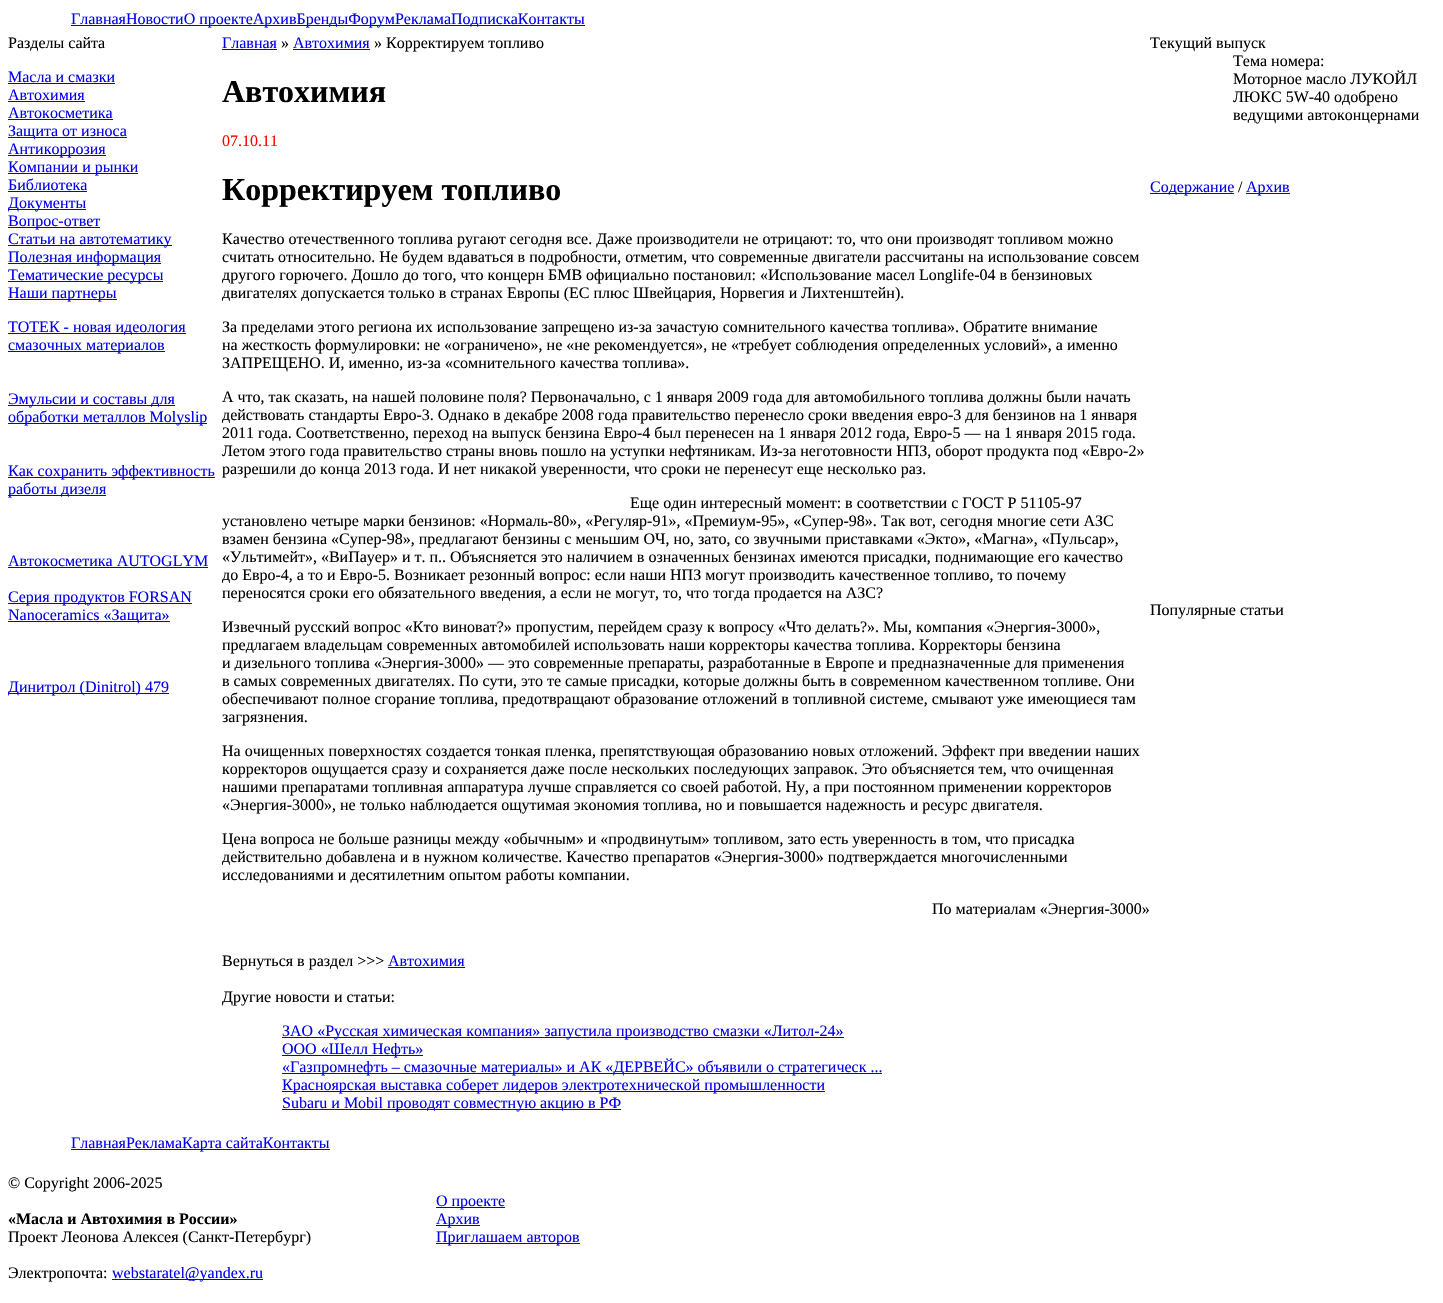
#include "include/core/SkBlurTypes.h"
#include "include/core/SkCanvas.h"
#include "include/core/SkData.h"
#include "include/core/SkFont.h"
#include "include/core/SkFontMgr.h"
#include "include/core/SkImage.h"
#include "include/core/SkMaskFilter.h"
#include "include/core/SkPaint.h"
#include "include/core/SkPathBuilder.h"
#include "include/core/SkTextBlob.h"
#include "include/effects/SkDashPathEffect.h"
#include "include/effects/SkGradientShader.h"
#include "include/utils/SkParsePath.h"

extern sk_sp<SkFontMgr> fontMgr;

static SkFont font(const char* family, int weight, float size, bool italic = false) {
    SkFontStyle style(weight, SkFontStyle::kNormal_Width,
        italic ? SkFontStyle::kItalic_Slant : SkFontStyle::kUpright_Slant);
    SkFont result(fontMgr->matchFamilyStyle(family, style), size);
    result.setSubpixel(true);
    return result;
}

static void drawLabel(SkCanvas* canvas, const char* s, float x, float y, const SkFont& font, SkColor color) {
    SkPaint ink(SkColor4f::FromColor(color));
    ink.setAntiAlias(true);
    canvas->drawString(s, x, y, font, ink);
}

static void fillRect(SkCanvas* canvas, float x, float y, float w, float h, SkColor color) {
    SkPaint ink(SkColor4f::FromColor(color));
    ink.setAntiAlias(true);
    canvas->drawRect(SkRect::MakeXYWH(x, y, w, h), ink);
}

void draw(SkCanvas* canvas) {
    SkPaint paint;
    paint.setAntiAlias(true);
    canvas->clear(0xFFFFFFFF);
    fillRect(canvas, 71, 25, 514, 1, 0xFF0000EE);
    SkFont font1 = font("Liberation Serif", 400, 16);
    drawLabel(canvas, "ГлавнаяНовостиО проектеАрхивБрендыФорумРекламаПодпискаКонтакты", 71, 24, font1, 0xFF0000EE);
    drawLabel(canvas, "Разделы сайта", 8, 48, font1, 0xFF000000);
    drawLabel(canvas, "Масла и смазки", 8, 82, font1, 0xFF0000EE);
    fillRect(canvas, 8, 83, 107, 1, 0xFF0000EE);
    drawLabel(canvas, "Автохимия", 8, 100, font1, 0xFF0000EE);
    fillRect(canvas, 8, 101, 77, 1, 0xFF0000EE);
    drawLabel(canvas, "Автокосметика", 8, 118, font1, 0xFF0000EE);
    fillRect(canvas, 8, 119, 105, 1, 0xFF0000EE);
    fillRect(canvas, 8, 137, 119, 1, 0xFF0000EE);
    drawLabel(canvas, "Защита от износа", 8, 136, font1, 0xFF0000EE);
    fillRect(canvas, 8, 155, 98, 1, 0xFF0000EE);
    drawLabel(canvas, "Антикоррозия", 8, 154, font1, 0xFF0000EE);
    fillRect(canvas, 8, 173, 130, 1, 0xFF0000EE);
    drawLabel(canvas, "Компании и рынки", 8, 172, font1, 0xFF0000EE);
    drawLabel(canvas, "Библиотека", 8, 190, font1, 0xFF0000EE);
    fillRect(canvas, 8, 191, 79, 1, 0xFF0000EE);
    fillRect(canvas, 8, 209, 78, 1, 0xFF0000EE);
    drawLabel(canvas, "Документы", 8, 208, font1, 0xFF0000EE);
    fillRect(canvas, 8, 227, 92, 1, 0xFF0000EE);
    drawLabel(canvas, "Вопрос-ответ", 8, 226, font1, 0xFF0000EE);
    fillRect(canvas, 8, 245, 164, 1, 0xFF0000EE);
    drawLabel(canvas, "Статьи на автотематику", 8, 244, font1, 0xFF0000EE);
    fillRect(canvas, 8, 263, 153, 1, 0xFF0000EE);
    drawLabel(canvas, "Полезная информация", 8, 262, font1, 0xFF0000EE);
    fillRect(canvas, 8, 281, 155, 1, 0xFF0000EE);
    drawLabel(canvas, "Тематические ресурсы", 8, 280, font1, 0xFF0000EE);
    fillRect(canvas, 8, 299, 109, 1, 0xFF0000EE);
    drawLabel(canvas, "Наши партнеры", 8, 298, font1, 0xFF0000EE);
    fillRect(canvas, 8, 333, 178, 1, 0xFF0000EE);
    drawLabel(canvas, "ТОТЕК - новая идеология", 8, 332, font1, 0xFF0000EE);
    fillRect(canvas, 8, 351, 157, 1, 0xFF0000EE);
    drawLabel(canvas, "смазочных материалов", 8, 350, font1, 0xFF0000EE);
    fillRect(canvas, 8, 405, 167, 1, 0xFF0000EE);
    drawLabel(canvas, "Эмульсии и составы для", 8, 404, font1, 0xFF0000EE);
    fillRect(canvas, 8, 423, 199, 1, 0xFF0000EE);
    drawLabel(canvas, "обработки металлов Molyslip", 8, 422, font1, 0xFF0000EE);
    fillRect(canvas, 8, 477, 207, 1, 0xFF0000EE);
    drawLabel(canvas, "Как сохранить эффективность", 8, 476, font1, 0xFF0000EE);
    fillRect(canvas, 8, 495, 98, 1, 0xFF0000EE);
    drawLabel(canvas, "работы дизеля", 8, 494, font1, 0xFF0000EE);
    drawLabel(canvas, "Автокосметика AUTOGLYM", 8, 566, font1, 0xFF0000EE);
    fillRect(canvas, 8, 567, 200, 1, 0xFF0000EE);
    fillRect(canvas, 8, 603, 184, 1, 0xFF0000EE);
    drawLabel(canvas, "Серия продуктов FORSAN", 8, 602, font1, 0xFF0000EE);
    fillRect(canvas, 8, 621, 162, 1, 0xFF0000EE);
    drawLabel(canvas, "Nanoceramics «Защита»", 8, 620, font1, 0xFF0000EE);
    fillRect(canvas, 8, 693, 161, 1, 0xFF0000EE);
    drawLabel(canvas, "Динитрол (Dinitrol) 479", 8, 692, font1, 0xFF0000EE);
    drawLabel(canvas, "Главная", 222, 48, font1, 0xFF0000EE);
    fillRect(canvas, 222, 49, 55, 1, 0xFF0000EE);
    drawLabel(canvas, "»", 281, 48, font1, 0xFF000000);
    drawLabel(canvas, "Автохимия", 293, 48, font1, 0xFF0000EE);
    fillRect(canvas, 293, 49, 77, 1, 0xFF0000EE);
    drawLabel(canvas, "» Корректируем топливо", 374, 48, font1, 0xFF000000);
    SkFont font2 = font("Liberation Serif", 700, 32);
    drawLabel(canvas, "Автохимия", 222, 102, font2, 0xFF000000);
    drawLabel(canvas, "07.10.11", 222, 146, font1, 0xFFFF0000);
    drawLabel(canvas, "Корректируем топливо", 222, 200, font2, 0xFF000000);
    drawLabel(canvas, "Качество отечественного топлива ругают сегодня все. Даже производители не отрицают: то, что они производят топливом можно", 222, 244, font1, 0xFF000000);
    drawLabel(canvas, "считать относительно. Не будем вдаваться в подробности, отметим, что современные двигатели рассчитаны на использование совсем", 222, 262, font1, 0xFF000000);
    drawLabel(canvas, "другого горючего. Дошло до того, что концерн БМВ официально постановил: «Использование масел Longlife-04 в бензиновых", 222, 280, font1, 0xFF000000);
    drawLabel(canvas, "двигателях допускается только в странах Европы (ЕС плюс Швейцария, Норвегия и Лихтенштейн).", 222, 298, font1, 0xFF000000);
    drawLabel(canvas, "За пределами этого региона их использование запрещено из-за зачастую сомнительного качества топлива». Обратите внимание", 222, 332, font1, 0xFF000000);
    drawLabel(canvas, "на жесткость формулировки: не «ограничено», не «не рекомендуется», не «требует соблюдения определенных условий», а именно", 222, 350, font1, 0xFF000000);
    drawLabel(canvas, "ЗАПРЕЩЕНО. И, именно, из-за «сомнительного качества топлива».", 222, 368, font1, 0xFF000000);
    drawLabel(canvas, "А что, так сказать, на нашей половине поля? Первоначально, с 1 января 2009 года для автомобильного топлива должны были начать", 222, 402, font1, 0xFF000000);
    drawLabel(canvas, "действовать стандарты Евро-3. Однако в декабре 2008 года правительство перенесло сроки введения евро-3 для бензинов на 1 января", 222, 420, font1, 0xFF000000);
    drawLabel(canvas, "2011 года. Соответственно, переход на выпуск бензина Евро-4 был перенесен на 1 января 2012 года, Евро-5 — на 1 января 2015 года.", 222, 438, font1, 0xFF000000);
    drawLabel(canvas, "Летом этого года правительство страны вновь пошло на уступки нефтяникам. Из-за неготовности НПЗ, оборот продукта под «Евро-2»", 222, 456, font1, 0xFF000000);
    drawLabel(canvas, "разрешили до конца 2013 года. И нет никакой уверенности, что сроки не перенесут еще несколько раз.", 222, 474, font1, 0xFF000000);
    drawLabel(canvas, "Еще один интересный момент: в соответствии с ГОСТ Р 51105-97", 630, 508, font1, 0xFF000000);
    drawLabel(canvas, "установлено четыре марки бензинов: «Нормаль-80», «Регуляр-91», «Премиум-95», «Супер-98». Так вот, сегодня многие сети АЗС", 222, 526, font1, 0xFF000000);
    drawLabel(canvas, "взамен бензина «Супер-98», предлагают бензины с меньшим ОЧ, но, зато, со звучными приставками «Экто», «Магна», «Пульсар»,", 222, 544, font1, 0xFF000000);
    drawLabel(canvas, "«Ультимейт», «ВиПауер» и т. п.. Объясняется это наличием в означенных бензинах имеются присадки, поднимающие его качество", 222, 562, font1, 0xFF000000);
    drawLabel(canvas, "до Евро-4, а то и Евро-5. Возникает резонный вопрос: если наши НПЗ могут производить качественное топливо, то почему", 222, 580, font1, 0xFF000000);
    drawLabel(canvas, "переносятся сроки его обязательного введения, а если не могут, то, что тогда продается на АЗС?", 222, 598, font1, 0xFF000000);
    drawLabel(canvas, "Извечный русский вопрос «Кто виноват?» пропустим, перейдем сразу к вопросу «Что делать?». Мы, компания «Энергия-3000»,", 222, 632, font1, 0xFF000000);
    drawLabel(canvas, "предлагаем владельцам современных автомобилей использовать наши корректоры качества топлива. Корректоры бензина", 222, 650, font1, 0xFF000000);
    drawLabel(canvas, "и дизельного топлива «Энергия-3000» — это современные препараты, разработанные в Европе и предназначенные для применения", 222, 668, font1, 0xFF000000);
    drawLabel(canvas, "в самых современных двигателях. По сути, это те самые присадки, которые должны быть в современном качественном топливе. Они", 222, 686, font1, 0xFF000000);
    drawLabel(canvas, "обеспечивают полное сгорание топлива, предотвращают образование отложений в топливной системе, смывают уже имеющиеся там", 222, 704, font1, 0xFF000000);
    drawLabel(canvas, "загрязнения.", 222, 722, font1, 0xFF000000);
    drawLabel(canvas, "На очищенных поверхностях создается тонкая пленка, препятствующая образованию новых отложений. Эффект при введении наших", 222, 756, font1, 0xFF000000);
    drawLabel(canvas, "корректоров ощущается сразу и сохраняется даже после нескольких последующих заправок. Это объясняется тем, что очищенная", 222, 774, font1, 0xFF000000);
    drawLabel(canvas, "нашими препаратами топливная аппаратура лучше справляется со своей работой. Ну, а при постоянном применении корректоров", 222, 792, font1, 0xFF000000);
    drawLabel(canvas, "«Энергия-3000», не только наблюдается ощутимая экономия топлива, но и повышается надежность и ресурс двигателя.", 222, 810, font1, 0xFF000000);
    drawLabel(canvas, "Цена вопроса не больше разницы между «обычным» и «продвинутым» топливом, зато есть уверенность в том, что присадка", 222, 844, font1, 0xFF000000);
    drawLabel(canvas, "действительно добавлена и в нужном количестве. Качество препаратов «Энергия-3000» подтверждается многочисленными", 222, 862, font1, 0xFF000000);
    drawLabel(canvas, "исследованиями и десятилетним опытом работы компании.", 222, 880, font1, 0xFF000000);
    drawLabel(canvas, "По материалам «Энергия-3000»", 932, 914, font1, 0xFF000000);
    drawLabel(canvas, "Вернуться в раздел >>>", 222, 966, font1, 0xFF000000);
    drawLabel(canvas, "Автохимия", 388, 966, font1, 0xFF0000EE);
    fillRect(canvas, 388, 967, 77, 1, 0xFF0000EE);
    drawLabel(canvas, "Другие новости и статьи:", 222, 1002, font1, 0xFF000000);
    fillRect(canvas, 282, 1037, 562, 1, 0xFF0000EE);
    drawLabel(canvas, "ЗАО «Русская химическая компания» запустила производство смазки «Литол-24»", 282, 1036, font1, 0xFF0000EE);
    fillRect(canvas, 282, 1055, 141, 1, 0xFF0000EE);
    drawLabel(canvas, "ООО «Шелл Нефть»", 282, 1054, font1, 0xFF0000EE);
    fillRect(canvas, 282, 1073, 600, 1, 0xFF0000EE);
    drawLabel(canvas, "«Газпромнефть – смазочные материалы» и АК «ДЕРВЕЙС» объявили о стратегическ ...", 282, 1072, font1, 0xFF0000EE);
    fillRect(canvas, 282, 1091, 543, 1, 0xFF0000EE);
    drawLabel(canvas, "Красноярская выставка соберет лидеров электротехнической промышленности", 282, 1090, font1, 0xFF0000EE);
    fillRect(canvas, 282, 1109, 339, 1, 0xFF0000EE);
    drawLabel(canvas, "Subaru и Mobil проводят совместную акцию в РФ", 282, 1108, font1, 0xFF0000EE);
    drawLabel(canvas, "Текущий выпуск", 1150, 48, font1, 0xFF000000);
    drawLabel(canvas, "Тема номера:", 1233, 66, font1, 0xFF000000);
    drawLabel(canvas, "Моторное масло ЛУКОЙЛ", 1233, 84, font1, 0xFF000000);
    drawLabel(canvas, "ЛЮКС 5W-40 одобрено", 1233, 102, font1, 0xFF000000);
    drawLabel(canvas, "ведущими автоконцернами", 1233, 120, font1, 0xFF000000);
    fillRect(canvas, 1150, 193, 84, 1, 0xFF0000EE);
    drawLabel(canvas, "Содержание", 1150, 192, font1, 0xFF0000EE);
    drawLabel(canvas, "/", 1238, 192, font1, 0xFF000000);
    fillRect(canvas, 1246, 193, 44, 1, 0xFF0000EE);
    drawLabel(canvas, "Архив", 1246, 192, font1, 0xFF0000EE);
    drawLabel(canvas, "Популярные статьи", 1150, 615, font1, 0xFF000000);
    fillRect(canvas, 71, 1149, 259, 1, 0xFF0000EE);
    drawLabel(canvas, "ГлавнаяРекламаКарта сайтаКонтакты", 71, 1148, font1, 0xFF0000EE);
    drawLabel(canvas, "© Copyright 2006-2025", 8, 1188, font1, 0xFF000000);
    SkFont font3 = font("Liberation Serif", 700, 16);
    drawLabel(canvas, "«Масла и Автохимия в России»", 8, 1224, font3, 0xFF000000);
    drawLabel(canvas, "Проект Леонова Алексея (Санкт-Петербург)", 8, 1242, font1, 0xFF000000);
    drawLabel(canvas, "Электропочта:", 8, 1278, font1, 0xFF000000);
    fillRect(canvas, 112, 1279, 151, 1, 0xFF0000EE);
    drawLabel(canvas, "webstaratel@yandex.ru", 112, 1278, font1, 0xFF0000EE);
    fillRect(canvas, 436, 1207, 69, 1, 0xFF0000EE);
    drawLabel(canvas, "О проекте", 436, 1206, font1, 0xFF0000EE);
    fillRect(canvas, 436, 1225, 44, 1, 0xFF0000EE);
    drawLabel(canvas, "Архив", 436, 1224, font1, 0xFF0000EE);
    fillRect(canvas, 436, 1243, 144, 1, 0xFF0000EE);
    drawLabel(canvas, "Приглашаем авторов", 436, 1242, font1, 0xFF0000EE);
}
